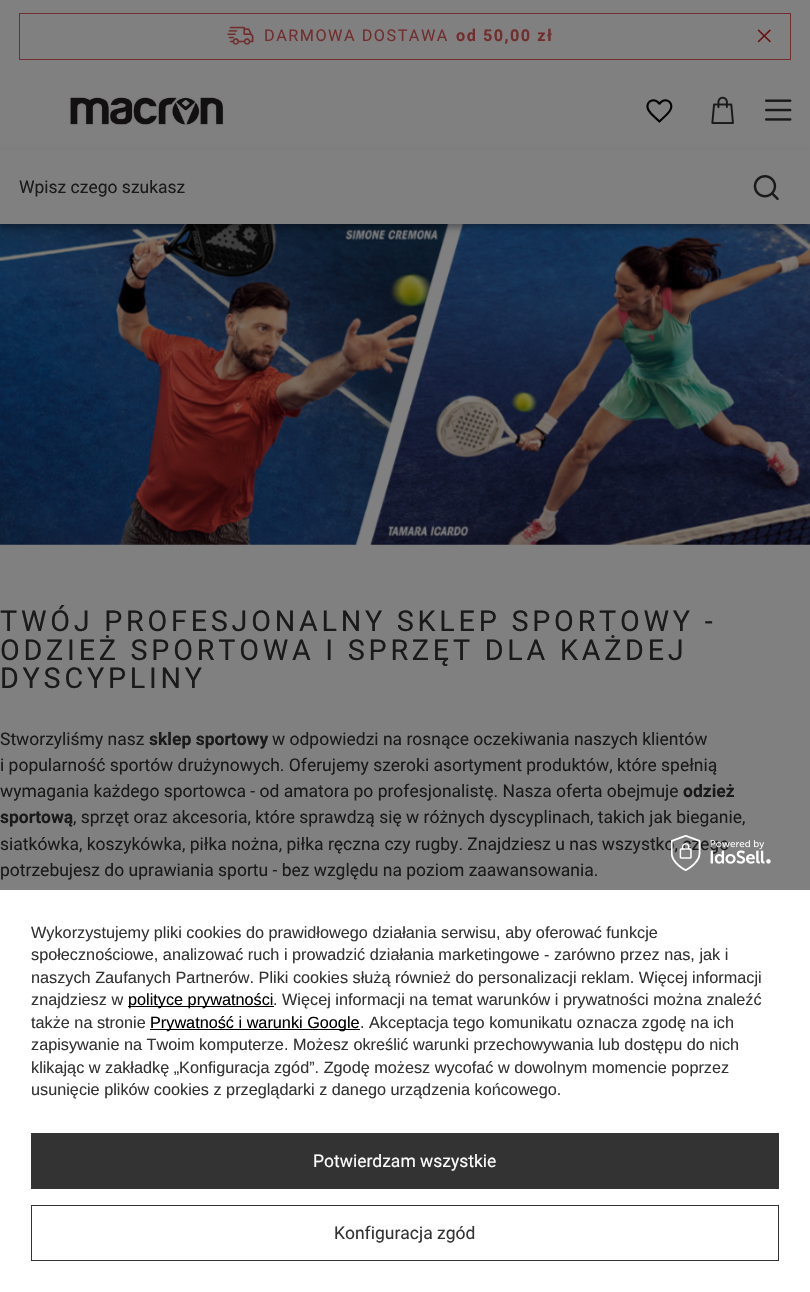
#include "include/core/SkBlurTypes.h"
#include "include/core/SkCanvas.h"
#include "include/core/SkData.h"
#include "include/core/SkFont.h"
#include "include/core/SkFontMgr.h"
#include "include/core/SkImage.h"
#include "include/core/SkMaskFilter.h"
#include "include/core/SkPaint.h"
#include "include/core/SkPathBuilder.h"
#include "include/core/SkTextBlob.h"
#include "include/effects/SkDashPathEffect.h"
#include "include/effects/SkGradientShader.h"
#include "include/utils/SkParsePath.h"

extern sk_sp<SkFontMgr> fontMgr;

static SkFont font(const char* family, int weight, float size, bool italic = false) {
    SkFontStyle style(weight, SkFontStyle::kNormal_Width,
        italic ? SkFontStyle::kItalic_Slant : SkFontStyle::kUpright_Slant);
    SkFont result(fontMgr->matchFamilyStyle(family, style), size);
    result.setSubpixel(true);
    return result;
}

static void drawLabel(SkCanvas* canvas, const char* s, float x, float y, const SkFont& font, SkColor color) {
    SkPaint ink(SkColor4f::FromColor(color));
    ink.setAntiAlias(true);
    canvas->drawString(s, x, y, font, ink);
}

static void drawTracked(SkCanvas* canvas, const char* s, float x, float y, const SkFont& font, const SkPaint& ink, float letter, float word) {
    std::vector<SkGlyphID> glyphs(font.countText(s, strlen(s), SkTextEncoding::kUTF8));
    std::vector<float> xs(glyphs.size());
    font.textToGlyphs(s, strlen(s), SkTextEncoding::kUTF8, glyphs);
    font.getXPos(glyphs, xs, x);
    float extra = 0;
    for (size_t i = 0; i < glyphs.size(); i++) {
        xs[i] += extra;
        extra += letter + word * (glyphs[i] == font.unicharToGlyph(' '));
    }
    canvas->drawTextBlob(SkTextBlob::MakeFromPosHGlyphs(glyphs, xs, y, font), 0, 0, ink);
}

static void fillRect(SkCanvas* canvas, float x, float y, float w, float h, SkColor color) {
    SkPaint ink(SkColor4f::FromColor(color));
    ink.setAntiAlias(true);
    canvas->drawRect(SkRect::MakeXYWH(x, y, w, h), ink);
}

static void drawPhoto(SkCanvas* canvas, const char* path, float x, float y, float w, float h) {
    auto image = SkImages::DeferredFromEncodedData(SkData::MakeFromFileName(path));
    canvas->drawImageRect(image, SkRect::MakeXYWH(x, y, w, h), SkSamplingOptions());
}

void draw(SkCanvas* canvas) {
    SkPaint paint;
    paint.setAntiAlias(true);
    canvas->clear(0xFF808080);
    paint.setStroke(true);
    paint.setStrokeWidth(1);
    paint.setColor(0xFF722E2E);
    canvas->drawRect(SkRect::MakeXYWH(19.5f, 13.5f, 771, 46), paint);
    drawPhoto(canvas, "assets/img1.png", 227, 26, 27, 19);
    SkFont font1 = font("Roboto", 400, 16.25f);
    paint.setStroke(false);
    drawTracked(canvas, "DARMOWA DOSTAWA", 264, 41, font1, paint, 1.5f, 0);
    SkFont font2 = font("Roboto", 700, 16.25f);
    drawTracked(canvas, "od 50,00 zł", 456, 41, font2, paint, 1.5f, 0);
    drawPhoto(canvas, "assets/img2.png", 757, 29, 14, 14);
    drawPhoto(canvas, "assets/img3.png", 70, 97, 154, 28);
    drawPhoto(canvas, "assets/img4.png", 646, 99, 27, 24);
    drawPhoto(canvas, "assets/img5.png", 711, 96, 23, 28);
    drawPhoto(canvas, "assets/img6.png", 765, 99, 27, 22);
    drawPhoto(canvas, "assets/img8.png", 0, 224, 810, 321);
    paint.setColor(0x4D000000);
    paint.setMaskFilter(SkMaskFilter::MakeBlur(kNormal_SkBlurStyle, 3));
    canvas->drawRect(SkRect::MakeXYWH(0, 154, 810, 74), paint);
    paint.setMaskFilter(nullptr);
    fillRect(canvas, 0, 150, 810, 74, 0xFF808080);
    SkFont font3 = font("Roboto", 400, 17.5f);
    drawLabel(canvas, "Wpisz czego szukasz", 19, 193, font3, 0xFF1A1A1A);
    drawPhoto(canvas, "assets/img7.png", 753, 175, 26, 25);
    SkFont font4 = font("Roboto", 400, 28.75f);
    paint.setColor(0xFF1A1A1A);
    drawTracked(canvas, "TWÓJ PROFESJONALNY SKLEP SPORTOWY -", 0, 631, font4, paint, 3.75f, 0);
    drawTracked(canvas, "ODZIEŻ SPORTOWA I SPRZĘT DLA KAŻDEJ", 0, 660, font4, paint, 3.75f, 0);
    drawTracked(canvas, "DYSCYPLINY", 0, 688, font4, paint, 3.75f, 0);
    drawLabel(canvas, "Stworzyliśmy nasz", 0, 745, font3, 0xFF1A1A1A);
    SkFont font5 = font("Roboto", 700, 17.5f);
    drawLabel(canvas, "sklep sportowy", 149, 745, font5, 0xFF1A1A1A);
    drawLabel(canvas, "w odpowiedzi na rosnące oczekiwania naszych klientów", 272, 745, font3, 0xFF1A1A1A);
    drawLabel(canvas, "i popularność sportów drużynowych. Oferujemy szeroki asortyment produktów, które spełnią", 0, 771, font3, 0xFF1A1A1A);
    drawLabel(canvas, "wymagania każdego sportowca - od amatora po profesjonalistę. Nasza oferta obejmuje", 0, 797, font3, 0xFF1A1A1A);
    drawLabel(canvas, "odzież", 683, 797, font5, 0xFF1A1A1A);
    drawLabel(canvas, "sportową", 0, 823, font5, 0xFF1A1A1A);
    drawLabel(canvas, ", sprzęt oraz akcesoria, które sprawdzą się w różnych dyscyplinach, takich jak bieganie,", 73, 823, font3, 0xFF1A1A1A);
    drawLabel(canvas, "siatkówka, koszykówka, piłka nożna, piłka ręczna czy rugby. Znajdziesz u nas wszystko, czego", 0, 850, font3, 0xFF1A1A1A);
    drawLabel(canvas, "potrzebujesz do uprawiania sportu - bez względu na poziom zaawansowania.", 0, 876, font3, 0xFF1A1A1A);
    fillRect(canvas, 0, 890, 810, 402, 0xFFFFFFFF);
    drawPhoto(canvas, "assets/img9.png", 671, 835, 100, 36);
    SkFont font6 = font("Liberation Sans", 400, 16.25f);
    drawLabel(canvas, "Wykorzystujemy pliki cookies do prawidłowego działania serwisu, aby oferować funkcje", 31, 938, font6, 0xFF333333);
    drawLabel(canvas, "społecznościowe, analizować ruch i prowadzić działania marketingowe - zarówno przez nas, jak i", 31, 960, font6, 0xFF333333);
    drawLabel(canvas, "naszych Zaufanych Partnerów. Pliki cookies służą również do personalizacji reklam. Więcej informacji", 31, 983, font6, 0xFF333333);
    drawLabel(canvas, "znajdziesz w", 31, 1005, font6, 0xFF333333);
    fillRect(canvas, 128, 1006, 146, 1, 0xFF000000);
    drawLabel(canvas, "polityce prywatności", 128, 1005, font6, 0xFF000000);
    drawLabel(canvas, ". Więcej informacji na temat warunków i prywatności można znaleźć", 273, 1005, font6, 0xFF333333);
    drawLabel(canvas, "także na stronie", 31, 1028, font6, 0xFF333333);
    fillRect(canvas, 150, 1029, 210, 1, 0xFF000000);
    drawLabel(canvas, "Prywatność i warunki Google", 150, 1028, font6, 0xFF000000);
    drawLabel(canvas, ". Akceptacja tego komunikatu oznacza zgodę na ich", 360, 1028, font6, 0xFF333333);
    drawLabel(canvas, "zapisywanie na Twoim komputerze. Możesz określić warunki przechowywania lub dostępu do nich", 31, 1050, font6, 0xFF333333);
    drawLabel(canvas, "klikając w zakładkę „Konfiguracja zgód”. Zgodę możesz wycofać w dowolnym momencie poprzez", 31, 1073, font6, 0xFF333333);
    drawLabel(canvas, "usunięcie plików cookies z przeglądarki z danego urządzenia końcowego.", 31, 1095, font6, 0xFF333333);
    fillRect(canvas, 31, 1133, 748, 56, 0xFF333333);
    drawLabel(canvas, "Potwierdzam wszystkie", 313, 1167, font3, 0xFFFFFFFF);
    paint.setStroke(true);
    paint.setColor(0xFF333333);
    canvas->drawRect(SkRect::MakeXYWH(31.5f, 1205.5f, 747, 55), paint);
    drawLabel(canvas, "Konfiguracja zgód", 334, 1239, font3, 0xFF333333);
}
